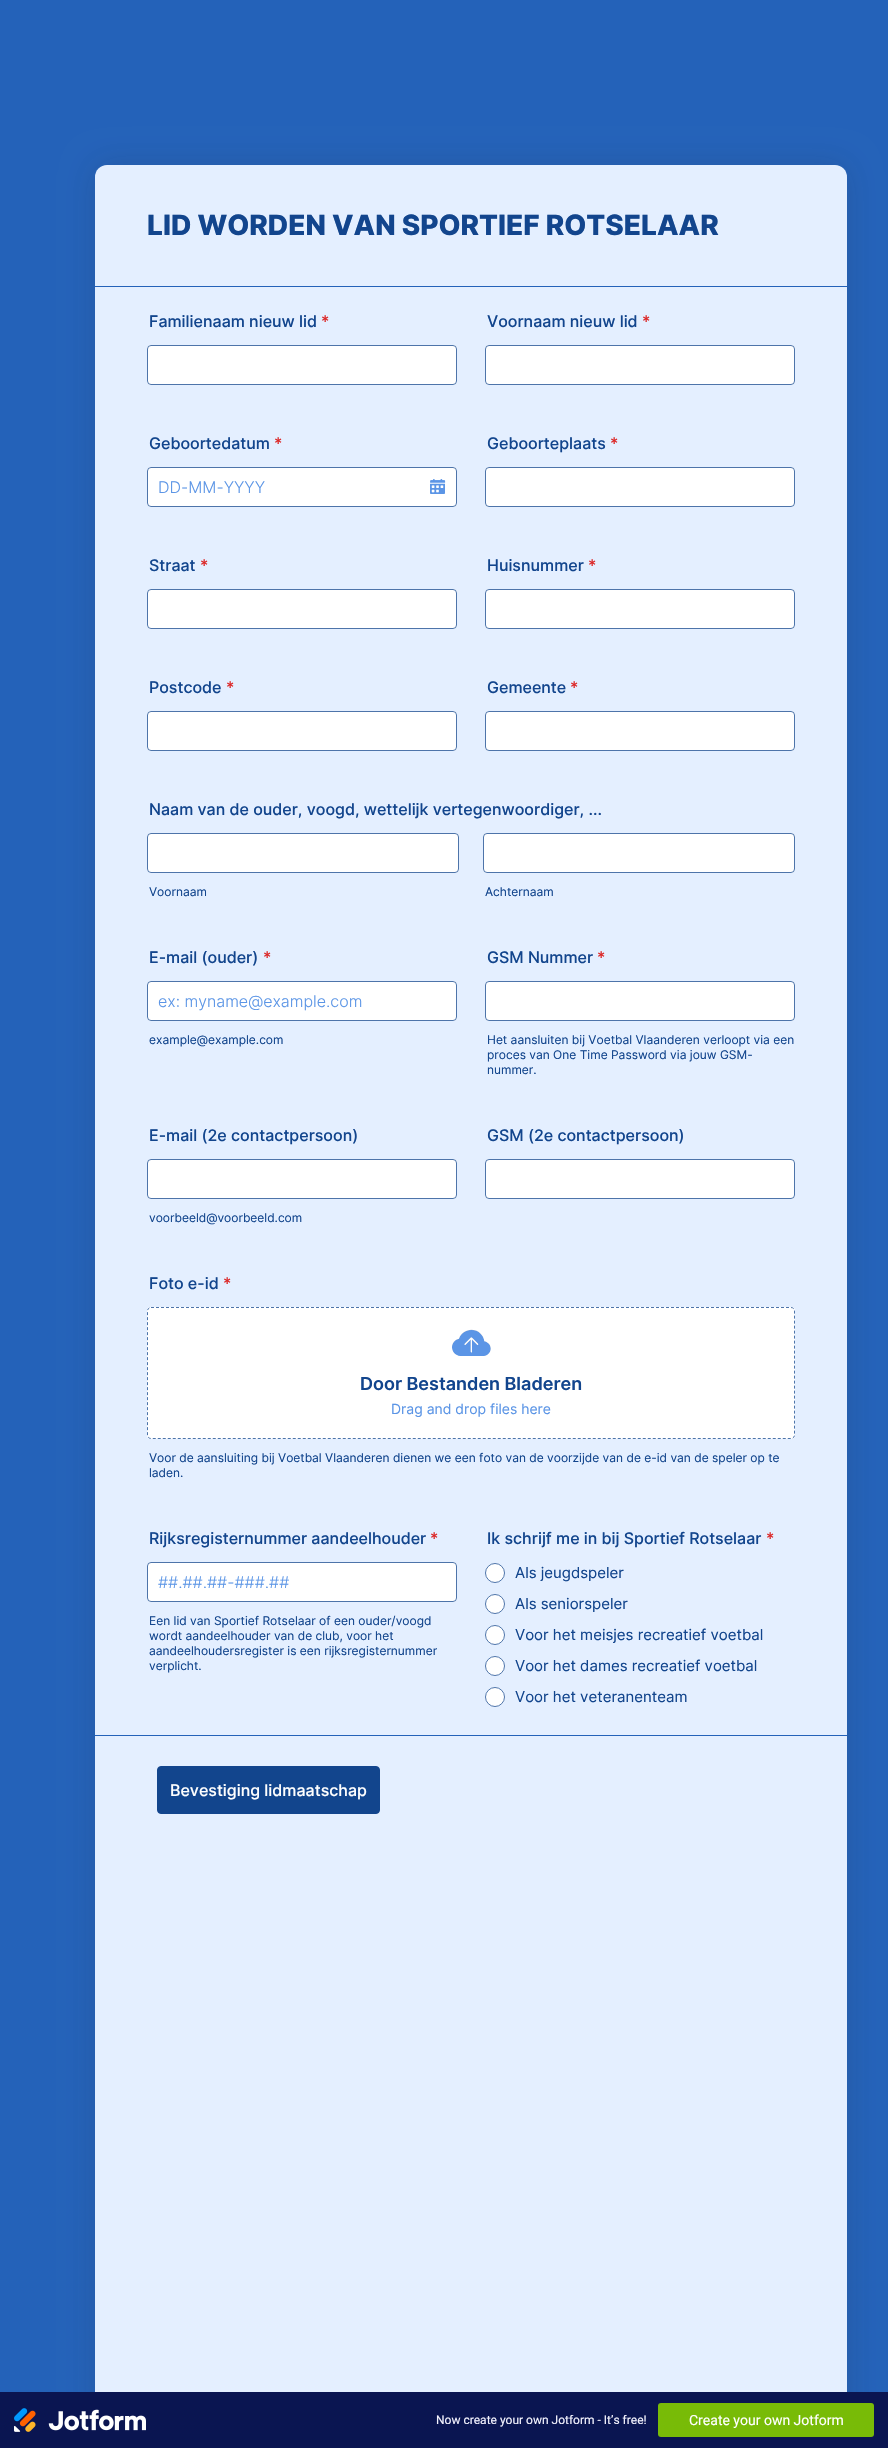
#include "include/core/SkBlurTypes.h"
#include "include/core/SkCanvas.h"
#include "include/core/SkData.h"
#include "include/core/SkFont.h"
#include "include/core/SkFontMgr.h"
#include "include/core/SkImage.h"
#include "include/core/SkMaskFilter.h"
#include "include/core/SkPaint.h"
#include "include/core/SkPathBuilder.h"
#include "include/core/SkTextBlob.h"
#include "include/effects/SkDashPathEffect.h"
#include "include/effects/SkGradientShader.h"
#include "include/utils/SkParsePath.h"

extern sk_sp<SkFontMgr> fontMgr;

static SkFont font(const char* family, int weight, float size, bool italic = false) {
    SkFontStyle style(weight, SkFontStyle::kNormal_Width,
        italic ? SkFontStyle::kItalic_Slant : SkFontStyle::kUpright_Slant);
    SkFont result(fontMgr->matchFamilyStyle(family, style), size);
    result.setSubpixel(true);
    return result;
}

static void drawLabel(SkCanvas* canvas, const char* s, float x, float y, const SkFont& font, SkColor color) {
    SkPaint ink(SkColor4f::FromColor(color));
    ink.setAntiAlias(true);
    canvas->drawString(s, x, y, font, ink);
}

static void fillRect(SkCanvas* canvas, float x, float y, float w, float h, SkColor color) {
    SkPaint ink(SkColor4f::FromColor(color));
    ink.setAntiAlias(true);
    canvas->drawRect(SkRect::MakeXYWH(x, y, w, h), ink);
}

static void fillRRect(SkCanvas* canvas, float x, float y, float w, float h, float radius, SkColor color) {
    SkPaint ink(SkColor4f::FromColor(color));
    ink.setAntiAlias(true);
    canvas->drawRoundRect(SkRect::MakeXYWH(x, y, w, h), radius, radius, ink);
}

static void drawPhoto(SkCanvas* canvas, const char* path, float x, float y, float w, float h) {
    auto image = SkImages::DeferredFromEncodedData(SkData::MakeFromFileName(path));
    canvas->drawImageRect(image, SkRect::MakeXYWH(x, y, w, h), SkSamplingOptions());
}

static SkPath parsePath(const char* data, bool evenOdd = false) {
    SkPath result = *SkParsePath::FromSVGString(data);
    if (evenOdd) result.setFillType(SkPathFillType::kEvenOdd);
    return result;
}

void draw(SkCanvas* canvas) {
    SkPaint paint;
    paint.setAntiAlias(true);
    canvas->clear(0xFF2462B9);
    paint.setColor(0x292A2A2A);
    paint.setMaskFilter(SkMaskFilter::MakeBlur(kNormal_SkBlurStyle, 16));
    canvas->drawRoundRect(SkRect::MakeXYWH(95, 165, 752, 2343), 12, 12, paint);
    paint.setMaskFilter(nullptr);
    fillRRect(canvas, 95, 165, 752, 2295, 12, 0xFFE4EFFF);
    fillRect(canvas, 95, 286, 752, 1, 0xFF2462B9);
    SkFont font1 = font("Inter", 800, 28);
    drawLabel(canvas, "LID WORDEN VAN SPORTIEF ROTSELAAR", 147, 235, font1, 0xFF12458D);
    SkFont font2 = font("Inter", 500, 16);
    drawLabel(canvas, "Familienaam nieuw lid", 149, 327, font2, 0xFF12458D);
    drawLabel(canvas, "*", 321, 327, font2, 0xFFDC2626);
    fillRRect(canvas, 147, 345, 310, 40, 4, 0xFFFFFFFF);
    paint.setStroke(true);
    paint.setStrokeWidth(1);
    paint.setColor(0xBF12458D);
    canvas->drawRoundRect(SkRect::MakeXYWH(147.5f, 345.5f, 309, 39), 3.5f, 3.5f, paint);
    drawLabel(canvas, "Voornaam nieuw lid", 487, 327, font2, 0xFF12458D);
    drawLabel(canvas, "*", 642, 327, font2, 0xFFDC2626);
    fillRRect(canvas, 485, 345, 310, 40, 4, 0xFFFFFFFF);
    canvas->drawRoundRect(SkRect::MakeXYWH(485.5f, 345.5f, 309, 39), 3.5f, 3.5f, paint);
    drawLabel(canvas, "Geboortedatum", 149, 449, font2, 0xFF12458D);
    drawLabel(canvas, "*", 274, 449, font2, 0xFFDC2626);
    fillRRect(canvas, 147, 467, 310, 40, 4, 0xFFFFFFFF);
    drawPhoto(canvas, "assets/img1.png", 430, 479, 16, 15);
    canvas->drawRoundRect(SkRect::MakeXYWH(147.5f, 467.5f, 309, 39), 3.5f, 3.5f, paint);
    SkFont font3 = font("Inter", 300, 16);
    drawLabel(canvas, "DD-MM-YYYY", 158, 493, font3, 0xFF5B95E6);
    drawLabel(canvas, "Geboorteplaats", 487, 449, font2, 0xFF12458D);
    drawLabel(canvas, "*", 610, 449, font2, 0xFFDC2626);
    fillRRect(canvas, 485, 467, 310, 40, 4, 0xFFFFFFFF);
    canvas->drawRoundRect(SkRect::MakeXYWH(485.5f, 467.5f, 309, 39), 3.5f, 3.5f, paint);
    drawLabel(canvas, "Straat", 149, 571, font2, 0xFF12458D);
    drawLabel(canvas, "*", 200, 571, font2, 0xFFDC2626);
    fillRRect(canvas, 147, 589, 310, 40, 4, 0xFFFFFFFF);
    canvas->drawRoundRect(SkRect::MakeXYWH(147.5f, 589.5f, 309, 39), 3.5f, 3.5f, paint);
    drawLabel(canvas, "Huisnummer", 487, 571, font2, 0xFF12458D);
    drawLabel(canvas, "*", 588, 571, font2, 0xFFDC2626);
    fillRRect(canvas, 485, 589, 310, 40, 4, 0xFFFFFFFF);
    canvas->drawRoundRect(SkRect::MakeXYWH(485.5f, 589.5f, 309, 39), 3.5f, 3.5f, paint);
    drawLabel(canvas, "Postcode", 149, 693, font2, 0xFF12458D);
    drawLabel(canvas, "*", 226, 693, font2, 0xFFDC2626);
    fillRRect(canvas, 147, 711, 310, 40, 4, 0xFFFFFFFF);
    canvas->drawRoundRect(SkRect::MakeXYWH(147.5f, 711.5f, 309, 39), 3.5f, 3.5f, paint);
    drawLabel(canvas, "Gemeente", 487, 693, font2, 0xFF12458D);
    drawLabel(canvas, "*", 570, 693, font2, 0xFFDC2626);
    fillRRect(canvas, 485, 711, 310, 40, 4, 0xFFFFFFFF);
    canvas->drawRoundRect(SkRect::MakeXYWH(485.5f, 711.5f, 309, 39), 3.5f, 3.5f, paint);
    drawLabel(canvas, "Naam van de ouder, voogd, wettelijk vertegenwoordiger, ...", 149, 815, font2, 0xFF12458D);
    fillRRect(canvas, 147, 833, 312, 40, 4, 0xFFFFFFFF);
    canvas->drawRoundRect(SkRect::MakeXYWH(147.5f, 833.5f, 311, 39), 3.5f, 3.5f, paint);
    SkFont font4 = font("Inter", 400, 12);
    drawLabel(canvas, "Voornaam", 149, 896, font4, 0xFF12458D);
    fillRRect(canvas, 483, 833, 312, 40, 4, 0xFFFFFFFF);
    canvas->drawRoundRect(SkRect::MakeXYWH(483.5f, 833.5f, 311, 39), 3.5f, 3.5f, paint);
    drawLabel(canvas, "Achternaam", 485, 896, font4, 0xFF12458D);
    drawLabel(canvas, "E-mail (ouder)", 149, 963, font2, 0xFF12458D);
    drawLabel(canvas, "*", 263, 963, font2, 0xFFDC2626);
    fillRRect(canvas, 147, 981, 310, 40, 4, 0xFFFFFFFF);
    canvas->drawRoundRect(SkRect::MakeXYWH(147.5f, 981.5f, 309, 39), 3.5f, 3.5f, paint);
    drawLabel(canvas, "ex: myname@example.com", 158, 1007, font3, 0xFF5B95E6);
    drawLabel(canvas, "example@example.com", 149, 1044, font4, 0xFF12458D);
    drawLabel(canvas, "GSM Nummer", 487, 963, font2, 0xFF12458D);
    drawLabel(canvas, "*", 597, 963, font2, 0xFFDC2626);
    fillRRect(canvas, 485, 981, 310, 40, 4, 0xFFFFFFFF);
    canvas->drawRoundRect(SkRect::MakeXYWH(485.5f, 981.5f, 309, 39), 3.5f, 3.5f, paint);
    drawLabel(canvas, "Het aansluiten bij Voetbal Vlaanderen verloopt via een", 487, 1044, font4, 0xFF12458D);
    drawLabel(canvas, "proces van One Time Password via jouw GSM-", 487, 1059, font4, 0xFF12458D);
    drawLabel(canvas, "nummer.", 487, 1074, font4, 0xFF12458D);
    drawLabel(canvas, "E-mail (2e contactpersoon)", 149, 1141, font2, 0xFF12458D);
    fillRRect(canvas, 147, 1159, 310, 40, 4, 0xFFFFFFFF);
    canvas->drawRoundRect(SkRect::MakeXYWH(147.5f, 1159.5f, 309, 39), 3.5f, 3.5f, paint);
    drawLabel(canvas, "voorbeeld@voorbeeld.com", 149, 1222, font4, 0xFF12458D);
    drawLabel(canvas, "GSM (2e contactpersoon)", 487, 1141, font2, 0xFF12458D);
    fillRRect(canvas, 485, 1159, 310, 40, 4, 0xFFFFFFFF);
    canvas->drawRoundRect(SkRect::MakeXYWH(485.5f, 1159.5f, 309, 39), 3.5f, 3.5f, paint);
    drawLabel(canvas, "Foto e-id", 149, 1289, font2, 0xFF12458D);
    drawLabel(canvas, "*", 223, 1289, font2, 0xFFDC2626);
    fillRRect(canvas, 147, 1307, 648, 132, 4, 0xFFFFFFFF);
    paint.setPathEffect(SkDashPathEffect::Make({{3, 2}}, 0));
    canvas->drawPath(parsePath("M151 1307.5H791C793 1307.5 794.5 1309 794.5 1311V1435C794.5 1437 793 1438.5 791 1438.5H151C149 1438.5 147.5 1437 147.5 1435V1311C147.5 1309 149 1307.5 151 1307.5Z"), paint);
    paint.setPathEffect(nullptr);
    drawPhoto(canvas, "assets/img2.png", 452, 1329, 39, 27);
    SkFont font5 = font("Inter", 600, 18);
    drawLabel(canvas, "Door Bestanden Bladeren", 360, 1390, font5, 0xFF12458D);
    SkFont font6 = font("Inter", 400, 14);
    drawLabel(canvas, "Drag and drop files here", 391, 1414, font6, 0xFF5B95E6);
    drawLabel(canvas, "Voor de aansluiting bij Voetbal Vlaanderen dienen we een foto van de voorzijde van de e-id van de speler op te", 149, 1462, font4, 0xFF12458D);
    drawLabel(canvas, "laden.", 149, 1477, font4, 0xFF12458D);
    drawLabel(canvas, "Rijksregisternummer aandeelhouder", 149, 1544, font2, 0xFF12458D);
    drawLabel(canvas, "*", 430, 1544, font2, 0xFFDC2626);
    fillRRect(canvas, 147, 1562, 310, 40, 4, 0xFFFFFFFF);
    canvas->drawRoundRect(SkRect::MakeXYWH(147.5f, 1562.5f, 309, 39), 3.5f, 3.5f, paint);
    drawLabel(canvas, "##.##.##-###.##", 158, 1588, font3, 0xFF5B95E6);
    drawLabel(canvas, "Een lid van Sportief Rotselaar of een ouder/voogd", 149, 1625, font4, 0xFF12458D);
    drawLabel(canvas, "wordt aandeelhouder van de club, voor het", 149, 1640, font4, 0xFF12458D);
    drawLabel(canvas, "aandeelhoudersregister is een rijksregisternummer", 149, 1655, font4, 0xFF12458D);
    drawLabel(canvas, "verplicht.", 149, 1670, font4, 0xFF12458D);
    drawLabel(canvas, "Ik schrijf me in bij Sportief Rotselaar", 487, 1544, font2, 0xFF12458D);
    drawLabel(canvas, "*", 766, 1544, font2, 0xFFDC2626);
    paint.setStroke(false);
    paint.setColor(0xFFFFFFFF);
    canvas->drawCircle(495, 1573, 10, paint);
    paint.setStroke(true);
    paint.setColor(0xBF12458D);
    canvas->drawCircle(495, 1573, 9.5f, paint);
    SkFont font7 = font("Inter", 400, 15);
    drawLabel(canvas, "Als jeugdspeler", 515, 1578, font7, 0xFF12458D);
    paint.setStroke(false);
    paint.setColor(0xFFFFFFFF);
    canvas->drawCircle(495, 1604, 10, paint);
    paint.setStroke(true);
    paint.setColor(0xBF12458D);
    canvas->drawCircle(495, 1604, 9.5f, paint);
    drawLabel(canvas, "Als seniorspeler", 515, 1609, font7, 0xFF12458D);
    paint.setStroke(false);
    paint.setColor(0xFFFFFFFF);
    canvas->drawCircle(495, 1635, 10, paint);
    paint.setStroke(true);
    paint.setColor(0xBF12458D);
    canvas->drawCircle(495, 1635, 9.5f, paint);
    drawLabel(canvas, "Voor het meisjes recreatief voetbal", 515, 1640, font7, 0xFF12458D);
    paint.setStroke(false);
    paint.setColor(0xFFFFFFFF);
    canvas->drawCircle(495, 1666, 10, paint);
    paint.setStroke(true);
    paint.setColor(0xBF12458D);
    canvas->drawCircle(495, 1666, 9.5f, paint);
    drawLabel(canvas, "Voor het dames recreatief voetbal", 515, 1671, font7, 0xFF12458D);
    paint.setStroke(false);
    paint.setColor(0xFFFFFFFF);
    canvas->drawCircle(495, 1697, 10, paint);
    paint.setStroke(true);
    paint.setColor(0xBF12458D);
    canvas->drawCircle(495, 1697, 9.5f, paint);
    drawLabel(canvas, "Voor het veteranenteam", 515, 1702, font7, 0xFF12458D);
    fillRect(canvas, 95, 1735, 752, 1, 0xFF2462B9);
    paint.setStroke(false);
    paint.setColor(0xFF12458D);
    canvas->drawRoundRect(SkRect::MakeXYWH(157.5f, 1766.5f, 222, 47), 3.5f, 3.5f, paint);
    paint.setStroke(true);
    canvas->drawRoundRect(SkRect::MakeXYWH(157.5f, 1766.5f, 222, 47), 3.5f, 3.5f, paint);
    drawLabel(canvas, "Bevestiging lidmaatschap", 170, 1796, font2, 0xFFFFFFFF);
    fillRect(canvas, 0, 2392, 888, 56, 0xFF0A1551);
    drawPhoto(canvas, "assets/img3.png", 14, 2408, 132, 24);
    SkFont font8 = font("Roboto", 400, 12);
    drawLabel(canvas, "Now create your own Jotform - It’s free!", 436, 2424, font8, 0xFFF3F3FE);
    fillRRect(canvas, 658, 2403, 216, 34, 3, 0xFF78BB07);
    SkFont font9 = font("Roboto", 400, 14);
    drawLabel(canvas, "Create your own Jotform", 689, 2425, font9, 0xFFFFFFFF);
}
